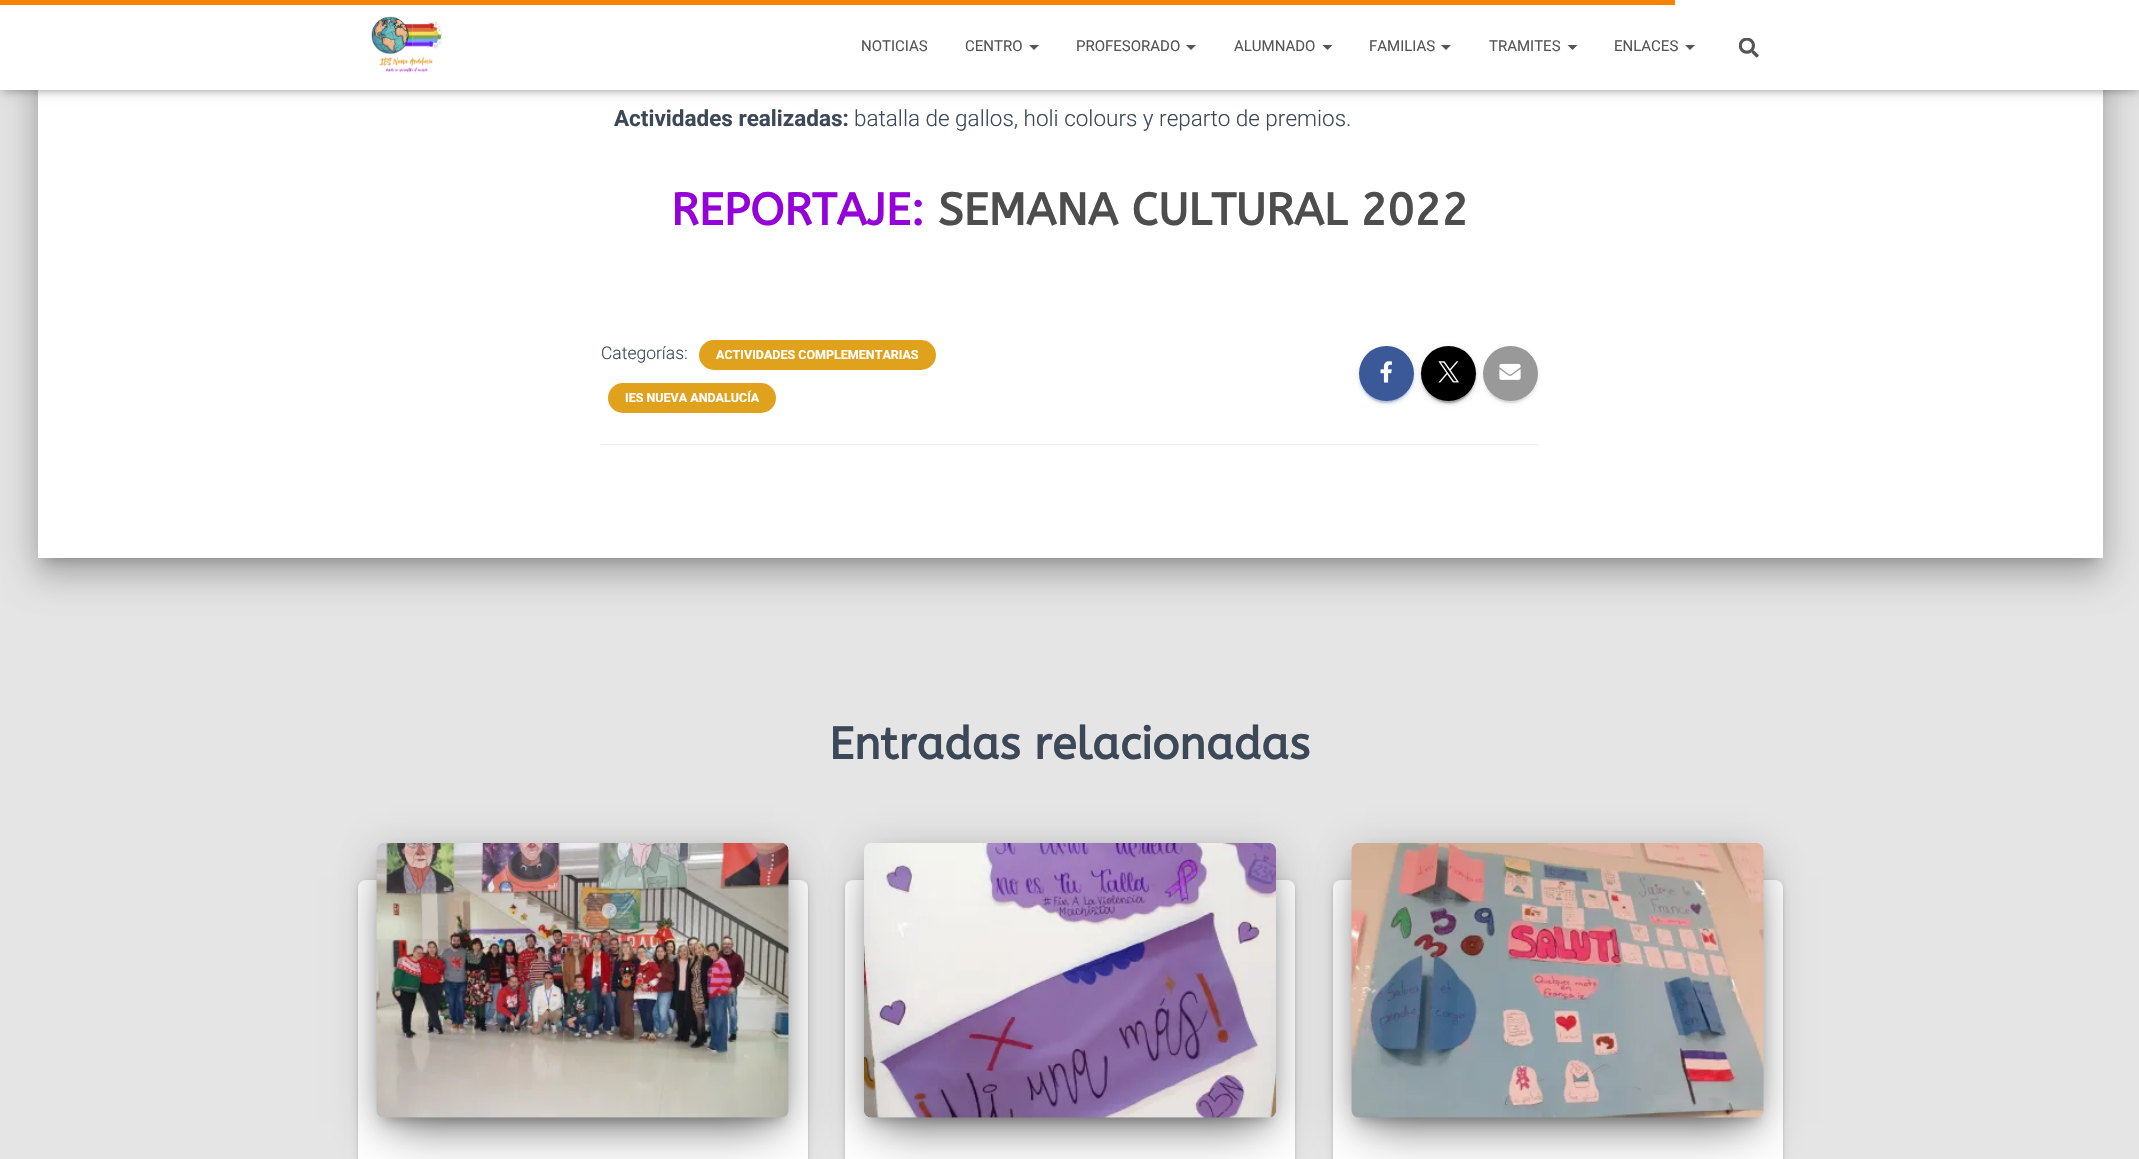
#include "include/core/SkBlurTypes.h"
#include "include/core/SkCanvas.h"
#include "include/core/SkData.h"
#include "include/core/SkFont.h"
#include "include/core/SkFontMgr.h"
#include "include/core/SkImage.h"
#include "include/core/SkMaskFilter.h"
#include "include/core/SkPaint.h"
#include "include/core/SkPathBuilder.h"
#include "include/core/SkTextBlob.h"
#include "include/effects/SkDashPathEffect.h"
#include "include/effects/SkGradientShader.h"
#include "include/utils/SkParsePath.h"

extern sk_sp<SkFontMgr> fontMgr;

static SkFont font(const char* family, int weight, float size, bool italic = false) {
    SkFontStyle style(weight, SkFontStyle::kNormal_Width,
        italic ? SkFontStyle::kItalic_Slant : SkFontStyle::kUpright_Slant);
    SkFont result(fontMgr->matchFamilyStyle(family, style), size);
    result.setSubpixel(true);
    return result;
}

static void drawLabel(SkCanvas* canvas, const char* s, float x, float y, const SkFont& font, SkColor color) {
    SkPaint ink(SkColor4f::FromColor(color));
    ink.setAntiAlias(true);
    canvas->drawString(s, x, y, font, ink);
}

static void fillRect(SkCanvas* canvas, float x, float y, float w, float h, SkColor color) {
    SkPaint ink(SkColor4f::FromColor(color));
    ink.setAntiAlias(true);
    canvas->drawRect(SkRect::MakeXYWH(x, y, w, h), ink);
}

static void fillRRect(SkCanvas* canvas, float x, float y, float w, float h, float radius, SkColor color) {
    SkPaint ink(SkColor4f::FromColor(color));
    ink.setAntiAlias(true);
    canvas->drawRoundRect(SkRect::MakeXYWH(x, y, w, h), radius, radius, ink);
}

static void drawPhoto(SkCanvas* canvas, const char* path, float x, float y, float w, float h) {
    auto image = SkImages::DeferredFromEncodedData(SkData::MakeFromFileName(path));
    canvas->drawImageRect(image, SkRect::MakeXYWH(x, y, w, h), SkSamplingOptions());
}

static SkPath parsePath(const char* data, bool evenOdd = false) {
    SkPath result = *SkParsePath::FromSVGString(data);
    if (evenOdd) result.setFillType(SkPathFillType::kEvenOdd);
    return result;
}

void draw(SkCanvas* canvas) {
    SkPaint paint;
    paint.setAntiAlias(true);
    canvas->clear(0xFFE5E5E5);
    paint.setColor(0x33000000);
    paint.setMaskFilter(SkMaskFilter::MakeBlur(kNormal_SkBlurStyle, 6));
    canvas->drawRoundRect(SkRect::MakeXYWH(44, -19, 2052, 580), 1, 1, paint);
    paint.setMaskFilter(nullptr);
    paint.setColor(0x1F000000);
    paint.setMaskFilter(SkMaskFilter::MakeBlur(kNormal_SkBlurStyle, 19));
    canvas->drawRoundRect(SkRect::MakeXYWH(31, -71, 2078, 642), 14, 14, paint);
    paint.setMaskFilter(nullptr);
    paint.setColor(0x24000000);
    paint.setMaskFilter(SkMaskFilter::MakeBlur(kNormal_SkBlurStyle, 15));
    canvas->drawRoundRect(SkRect::MakeXYWH(35, -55, 2070, 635), 10, 10, paint);
    paint.setMaskFilter(nullptr);
    fillRect(canvas, 38, 90, 2065, 468, 0xFFFFFFFF);
    paint.setColor(0x1A000000);
    paint.setMaskFilter(SkMaskFilter::MakeBlur(kNormal_SkBlurStyle, 3));
    canvas->drawRect(SkRect::MakeXYWH(3, 8, 2135, 85), paint);
    paint.setMaskFilter(nullptr);
    paint.setColor(0x1F000000);
    paint.setMaskFilter(SkMaskFilter::MakeBlur(kNormal_SkBlurStyle, 6));
    canvas->drawRect(SkRect::MakeXYWH(0, 1, 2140, 90), paint);
    paint.setMaskFilter(nullptr);
    paint.setColor(0x6B000000);
    paint.setMaskFilter(SkMaskFilter::MakeBlur(kNormal_SkBlurStyle, 6));
    canvas->drawRect(SkRect::MakeXYWH(8, 9, 2125, 75), paint);
    paint.setMaskFilter(nullptr);
    fillRect(canvas, 0, 0, 2139, 90, 0xFFFFFFFF);
    fillRect(canvas, 0, 0, 1675, 5, 0xFFF68400);
    drawPhoto(canvas, "assets/img1.png", 371, 16, 72, 57);
    SkFont font1 = font("Roboto", 400, 15);
    drawLabel(canvas, "NOTICIAS", 861, 51, font1, 0xFF555555);
    drawLabel(canvas, "CENTRO", 965, 51, font1, 0xFF555555);
    paint.setColor(0xFF555555);
    canvas->drawPath(parsePath("M1029 45H1039L1034 50Z"), paint);
    drawLabel(canvas, "PROFESORADO", 1076, 51, font1, 0xFF555555);
    canvas->drawPath(parsePath("M1186 45H1196L1191 50Z"), paint);
    drawLabel(canvas, "ALUMNADO", 1234, 51, font1, 0xFF555555);
    canvas->drawPath(parsePath("M1322.5 45H1332.5L1327.5 50Z"), paint);
    drawLabel(canvas, "FAMILIAS", 1369, 51, font1, 0xFF555555);
    canvas->drawPath(parsePath("M1441 45H1451L1446 50Z"), paint);
    drawLabel(canvas, "TRAMITES", 1489, 51, font1, 0xFF555555);
    canvas->drawPath(parsePath("M1567.5 45H1577.5L1572.5 50Z"), paint);
    drawLabel(canvas, "ENLACES", 1614, 51, font1, 0xFF555555);
    canvas->drawPath(parsePath("M1685 45H1695L1690 50Z"), paint);
    drawPhoto(canvas, "assets/img2.png", 1739, 38, 20, 20);
    SkFont font2 = font("Roboto", 700, 22.5f);
    drawLabel(canvas, "Actividades realizadas:", 614, 126, font2, 0xFF3C4858);
    SkFont font3 = font("Roboto", 300, 22.5f);
    drawLabel(canvas, "batalla de gallos, holi colours y reparto de premios.", 854, 126, font3, 0xFF3C4858);
    SkFont font4 = font("ABeeZee", 700, 45);
    drawLabel(canvas, "REPORTAJE:", 671, 225, font4, 0xFF9401D9);
    drawLabel(canvas, "SEMANA CULTURAL 2022", 938, 225, font4, 0xFF4D4D4D);
    SkFont font5 = font("Roboto", 300, 17.5f);
    drawLabel(canvas, "Categorías:", 601, 359, font5, 0xFF3C4858);
    fillRRect(canvas, 699, 340, 237, 30, 15, 0xFFE0A21D);
    SkFont font6 = font("Roboto", 700, 12.5f);
    drawLabel(canvas, "ACTIVIDADES COMPLEMENTARIAS", 716, 359, font6, 0xFFFFFFFF);
    fillRRect(canvas, 608, 383, 168, 30, 15, 0xFFE0A21D);
    drawLabel(canvas, "IES NUEVA ANDALUCÍA", 625, 402, font6, 0xFFFFFFFF);
    paint.setColor(0x1F3B5998);
    paint.setMaskFilter(SkMaskFilter::MakeBlur(kNormal_SkBlurStyle, 3));
    canvas->drawRoundRect(SkRect::MakeXYWH(1359, 348, 55, 55), 27.5f, 27.5f, paint);
    paint.setMaskFilter(nullptr);
    paint.setColor(0x333B5998);
    paint.setMaskFilter(SkMaskFilter::MakeBlur(kNormal_SkBlurStyle, 0.5f));
    canvas->drawRoundRect(SkRect::MakeXYWH(1361, 353, 50, 50), 25, 25, paint);
    paint.setMaskFilter(nullptr);
    paint.setColor(0x243B5998);
    paint.setMaskFilter(SkMaskFilter::MakeBlur(kNormal_SkBlurStyle, 1));
    canvas->drawRoundRect(SkRect::MakeXYWH(1359, 349, 55, 55), 27.5f, 27.5f, paint);
    paint.setMaskFilter(nullptr);
    paint.setColor(0xFF3B5998);
    canvas->drawCircle(1386.5f, 373.5f, 27.5f, paint);
    drawPhoto(canvas, "assets/img3.png", 1380, 361, 12, 22);
    paint.setColor(0x1F000000);
    paint.setMaskFilter(SkMaskFilter::MakeBlur(kNormal_SkBlurStyle, 3));
    canvas->drawRoundRect(SkRect::MakeXYWH(1421, 348, 55, 55), 27.5f, 27.5f, paint);
    paint.setMaskFilter(nullptr);
    paint.setColor(0x33000000);
    paint.setMaskFilter(SkMaskFilter::MakeBlur(kNormal_SkBlurStyle, 0.5f));
    canvas->drawRoundRect(SkRect::MakeXYWH(1424, 353, 50, 50), 25, 25, paint);
    paint.setMaskFilter(nullptr);
    paint.setColor(0x24000000);
    paint.setMaskFilter(SkMaskFilter::MakeBlur(kNormal_SkBlurStyle, 1));
    canvas->drawRoundRect(SkRect::MakeXYWH(1421, 349, 55, 55), 27.5f, 27.5f, paint);
    paint.setMaskFilter(nullptr);
    paint.setColor(0xFF000000);
    canvas->drawCircle(1448.5f, 373.5f, 27.5f, paint);
    drawPhoto(canvas, "assets/img4.png", 1438, 361, 21, 22);
    paint.setColor(0x1F999999);
    paint.setMaskFilter(SkMaskFilter::MakeBlur(kNormal_SkBlurStyle, 3));
    canvas->drawRoundRect(SkRect::MakeXYWH(1483, 348, 55, 55), 27.5f, 27.5f, paint);
    paint.setMaskFilter(nullptr);
    paint.setColor(0x33999999);
    paint.setMaskFilter(SkMaskFilter::MakeBlur(kNormal_SkBlurStyle, 0.5f));
    canvas->drawRoundRect(SkRect::MakeXYWH(1485, 353, 50, 50), 25, 25, paint);
    paint.setMaskFilter(nullptr);
    paint.setColor(0x24999999);
    paint.setMaskFilter(SkMaskFilter::MakeBlur(kNormal_SkBlurStyle, 1));
    canvas->drawRoundRect(SkRect::MakeXYWH(1483, 349, 55, 55), 27.5f, 27.5f, paint);
    paint.setMaskFilter(nullptr);
    paint.setColor(0xFF999999);
    canvas->drawCircle(1510.5f, 373.5f, 27.5f, paint);
    drawPhoto(canvas, "assets/img5.png", 1499, 363, 22, 17);
    fillRect(canvas, 601, 444, 938, 1, 0xFFEEEEEE);
    drawLabel(canvas, "Entradas relacionadas", 829, 759, font4, 0xFF3C4858);
    paint.setColor(0x1F000000);
    paint.setMaskFilter(SkMaskFilter::MakeBlur(kNormal_SkBlurStyle, 3));
    canvas->drawRoundRect(SkRect::MakeXYWH(358, 881, 450, 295), 8, 8, paint);
    paint.setMaskFilter(nullptr);
    paint.setColor(0x24000000);
    paint.setMaskFilter(SkMaskFilter::MakeBlur(kNormal_SkBlurStyle, 1));
    canvas->drawRoundRect(SkRect::MakeXYWH(358, 883, 450, 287), 8, 8, paint);
    paint.setMaskFilter(nullptr);
    fillRRect(canvas, 358, 880, 450, 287, 8, 0xFFFFFFFF);
    paint.setColor(0x33000000);
    paint.setMaskFilter(SkMaskFilter::MakeBlur(kNormal_SkBlurStyle, 6));
    canvas->drawRoundRect(SkRect::MakeXYWH(383, 859, 400, 262), 1, 1, paint);
    paint.setMaskFilter(nullptr);
    paint.setColor(0x1F000000);
    paint.setMaskFilter(SkMaskFilter::MakeBlur(kNormal_SkBlurStyle, 15.5f));
    canvas->drawRoundRect(SkRect::MakeXYWH(376, 848, 413, 275), 8, 8, paint);
    paint.setMaskFilter(nullptr);
    paint.setColor(0x8F000000);
    paint.setMaskFilter(SkMaskFilter::MakeBlur(kNormal_SkBlurStyle, 24));
    canvas->drawRect(SkRect::MakeXYWH(391, 878, 383, 245), paint);
    paint.setMaskFilter(nullptr);
    drawPhoto(canvas, "assets/img6.png", 376, 843, 413, 275);
    paint.setColor(0x1F000000);
    paint.setMaskFilter(SkMaskFilter::MakeBlur(kNormal_SkBlurStyle, 3));
    canvas->drawRoundRect(SkRect::MakeXYWH(845, 881, 450, 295), 8, 8, paint);
    paint.setMaskFilter(nullptr);
    paint.setColor(0x24000000);
    paint.setMaskFilter(SkMaskFilter::MakeBlur(kNormal_SkBlurStyle, 1));
    canvas->drawRoundRect(SkRect::MakeXYWH(845, 883, 450, 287), 8, 8, paint);
    paint.setMaskFilter(nullptr);
    fillRRect(canvas, 845, 880, 450, 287, 8, 0xFFFFFFFF);
    paint.setColor(0x33000000);
    paint.setMaskFilter(SkMaskFilter::MakeBlur(kNormal_SkBlurStyle, 6));
    canvas->drawRoundRect(SkRect::MakeXYWH(870, 859, 400, 262), 1, 1, paint);
    paint.setMaskFilter(nullptr);
    paint.setColor(0x1F000000);
    paint.setMaskFilter(SkMaskFilter::MakeBlur(kNormal_SkBlurStyle, 15.5f));
    canvas->drawRoundRect(SkRect::MakeXYWH(864, 848, 412, 275), 8, 8, paint);
    paint.setMaskFilter(nullptr);
    paint.setColor(0x8F000000);
    paint.setMaskFilter(SkMaskFilter::MakeBlur(kNormal_SkBlurStyle, 24));
    canvas->drawRect(SkRect::MakeXYWH(879, 878, 382, 245), paint);
    paint.setMaskFilter(nullptr);
    drawPhoto(canvas, "assets/img7.png", 864, 843, 412, 275);
    paint.setColor(0x1F000000);
    paint.setMaskFilter(SkMaskFilter::MakeBlur(kNormal_SkBlurStyle, 3));
    canvas->drawRoundRect(SkRect::MakeXYWH(1333, 881, 450, 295), 8, 8, paint);
    paint.setMaskFilter(nullptr);
    paint.setColor(0x24000000);
    paint.setMaskFilter(SkMaskFilter::MakeBlur(kNormal_SkBlurStyle, 1));
    canvas->drawRoundRect(SkRect::MakeXYWH(1333, 883, 450, 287), 8, 8, paint);
    paint.setMaskFilter(nullptr);
    fillRRect(canvas, 1333, 880, 450, 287, 8, 0xFFFFFFFF);
    paint.setColor(0x33000000);
    paint.setMaskFilter(SkMaskFilter::MakeBlur(kNormal_SkBlurStyle, 6));
    canvas->drawRoundRect(SkRect::MakeXYWH(1358, 859, 400, 262), 1, 1, paint);
    paint.setMaskFilter(nullptr);
    paint.setColor(0x1F000000);
    paint.setMaskFilter(SkMaskFilter::MakeBlur(kNormal_SkBlurStyle, 15.5f));
    canvas->drawRoundRect(SkRect::MakeXYWH(1351, 848, 413, 275), 8, 8, paint);
    paint.setMaskFilter(nullptr);
    paint.setColor(0x8F000000);
    paint.setMaskFilter(SkMaskFilter::MakeBlur(kNormal_SkBlurStyle, 24));
    canvas->drawRect(SkRect::MakeXYWH(1366, 878, 383, 245), paint);
    paint.setMaskFilter(nullptr);
    drawPhoto(canvas, "assets/img8.png", 1351, 843, 413, 275);
}
